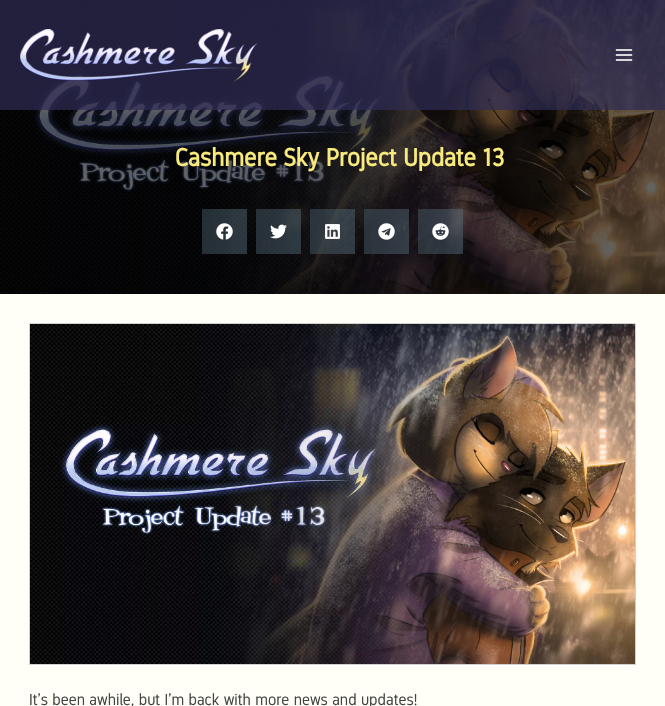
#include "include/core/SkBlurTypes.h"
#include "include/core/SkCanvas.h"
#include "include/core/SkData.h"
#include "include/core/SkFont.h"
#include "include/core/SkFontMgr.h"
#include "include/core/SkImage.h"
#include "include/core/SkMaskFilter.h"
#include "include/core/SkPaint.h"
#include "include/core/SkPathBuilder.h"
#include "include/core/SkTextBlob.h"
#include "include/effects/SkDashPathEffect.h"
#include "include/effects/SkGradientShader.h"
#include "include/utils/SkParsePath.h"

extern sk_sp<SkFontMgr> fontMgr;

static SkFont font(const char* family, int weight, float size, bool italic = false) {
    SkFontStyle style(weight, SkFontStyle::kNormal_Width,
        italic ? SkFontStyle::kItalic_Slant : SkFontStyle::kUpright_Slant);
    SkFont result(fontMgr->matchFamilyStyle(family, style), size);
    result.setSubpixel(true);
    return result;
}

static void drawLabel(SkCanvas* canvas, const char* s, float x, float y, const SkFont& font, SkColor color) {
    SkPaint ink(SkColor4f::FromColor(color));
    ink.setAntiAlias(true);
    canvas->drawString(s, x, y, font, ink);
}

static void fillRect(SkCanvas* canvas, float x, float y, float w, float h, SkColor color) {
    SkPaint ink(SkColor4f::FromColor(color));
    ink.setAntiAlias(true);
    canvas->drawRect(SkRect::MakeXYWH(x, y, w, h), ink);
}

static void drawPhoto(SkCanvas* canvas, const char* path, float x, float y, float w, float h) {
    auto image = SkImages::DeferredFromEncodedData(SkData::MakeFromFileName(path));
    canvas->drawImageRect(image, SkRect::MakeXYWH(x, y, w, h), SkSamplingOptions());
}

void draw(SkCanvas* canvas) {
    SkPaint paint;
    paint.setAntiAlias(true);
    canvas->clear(0xFFFFFFFF);
    drawPhoto(canvas, "assets/img3.png", 0, 0, 665, 294);
    fillRect(canvas, 0, 0, 665, 110, 0xB32D2B54);
    drawPhoto(canvas, "assets/img1.png", 20, 29, 237, 53);
    drawPhoto(canvas, "assets/img2.png", 615, 49, 18, 12);
    SkFont font1 = font("Gidole", 700, 25);
    drawLabel(canvas, "Cashmere Sky Project Update 13", 175, 166, font1, 0xFFF8EA7C);
    fillRect(canvas, 202, 209, 45, 45, 0x75546C7C);
    {
        const SkColor colors[] = {0x1F000000, 0x00000000};
        const float stops[] = {0, 1};
        const SkPoint ends[] = {{202, 232}, {247, 232}};
        paint.setShader(SkGradientShader::MakeLinear(ends, colors, stops, 2, SkTileMode::kClamp));
        paint.setAlpha(255);
    }
    canvas->drawRect(SkRect::MakeXYWH(202, 209, 30, 45), paint);
    drawPhoto(canvas, "assets/img4.png", 216, 223, 17, 17);
    fillRect(canvas, 256, 209, 45, 45, 0x75546C7C);
    {
        const SkColor colors[] = {0x1F000000, 0x00000000};
        const float stops[] = {0, 1};
        const SkPoint ends[] = {{256, 232}, {301, 232}};
        paint.setShader(SkGradientShader::MakeLinear(ends, colors, stops, 2, SkTileMode::kClamp));
        paint.setAlpha(255);
    }
    canvas->drawRect(SkRect::MakeXYWH(256, 209, 31, 45), paint);
    drawPhoto(canvas, "assets/img5.png", 270, 224, 17, 15);
    fillRect(canvas, 310, 209, 45, 45, 0x75546C7C);
    {
        const SkColor colors[] = {0x1F000000, 0x00000000};
        const float stops[] = {0, 1};
        const SkPoint ends[] = {{310, 232}, {355, 232}};
        paint.setShader(SkGradientShader::MakeLinear(ends, colors, stops, 2, SkTileMode::kClamp));
        paint.setAlpha(255);
    }
    canvas->drawRect(SkRect::MakeXYWH(310, 209, 33, 45), paint);
    drawPhoto(canvas, "assets/img6.png", 325, 224, 15, 15);
    fillRect(canvas, 364, 209, 45, 45, 0x75546C7C);
    {
        const SkColor colors[] = {0x1F000000, 0x00000000};
        const float stops[] = {0, 1};
        const SkPoint ends[] = {{364, 232}, {409, 232}};
        paint.setShader(SkGradientShader::MakeLinear(ends, colors, stops, 2, SkTileMode::kClamp));
        paint.setAlpha(255);
    }
    canvas->drawRect(SkRect::MakeXYWH(364, 209, 31, 45), paint);
    drawPhoto(canvas, "assets/img7.png", 378, 223, 17, 17);
    fillRect(canvas, 418, 209, 45, 45, 0x75546C7C);
    {
        const SkColor colors[] = {0x1F000000, 0x00000000};
        const float stops[] = {0, 1};
        const SkPoint ends[] = {{418, 232}, {463, 232}};
        paint.setShader(SkGradientShader::MakeLinear(ends, colors, stops, 2, SkTileMode::kClamp));
        paint.setAlpha(255);
    }
    canvas->drawRect(SkRect::MakeXYWH(418, 209, 33, 45), paint);
    drawPhoto(canvas, "assets/img8.png", 432, 223, 17, 17);
    paint.setShader(nullptr);
    paint.setColor(0x17000000);
    paint.setMaskFilter(SkMaskFilter::MakeBlur(kNormal_SkBlurStyle, 10));
    canvas->drawRect(SkRect::MakeXYWH(0, 294, 665, 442), paint);
    paint.setMaskFilter(nullptr);
    fillRect(canvas, 0, 294, 665, 412, 0xFFFFFFF7);
    paint.setStroke(true);
    paint.setStrokeWidth(1);
    paint.setColor(0xFFD1D1D1);
    canvas->drawRect(SkRect::MakeXYWH(29.5f, 323.5f, 606, 341), paint);
    drawPhoto(canvas, "assets/img9.png", 30, 324, 605, 340);
    SkFont font2 = font("Gidole", 400, 16.05f);
    drawLabel(canvas, "It’s been awhile, but I’m back with more news and updates!", 29, 705, font2, 0xFF444444);
}
